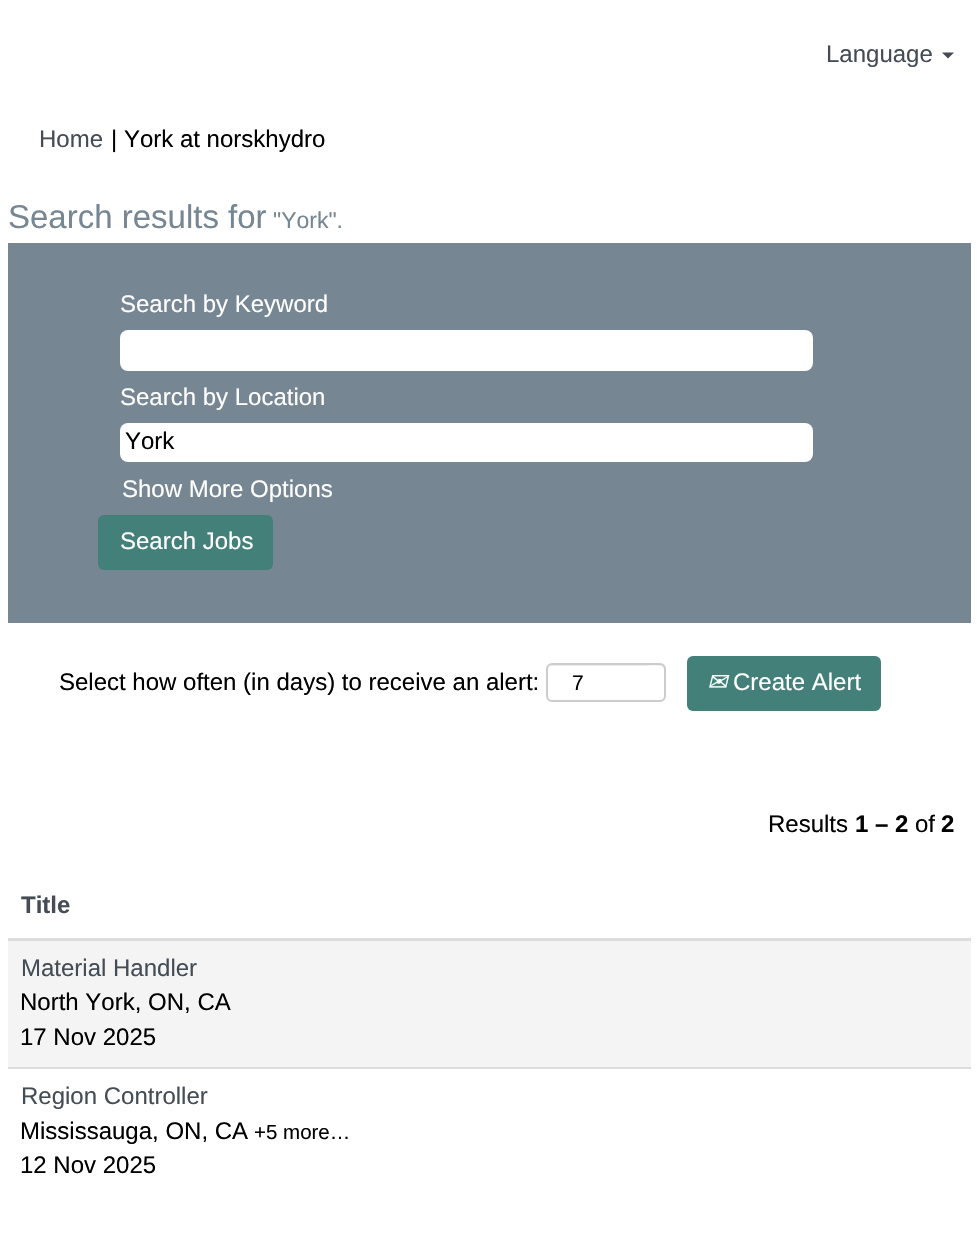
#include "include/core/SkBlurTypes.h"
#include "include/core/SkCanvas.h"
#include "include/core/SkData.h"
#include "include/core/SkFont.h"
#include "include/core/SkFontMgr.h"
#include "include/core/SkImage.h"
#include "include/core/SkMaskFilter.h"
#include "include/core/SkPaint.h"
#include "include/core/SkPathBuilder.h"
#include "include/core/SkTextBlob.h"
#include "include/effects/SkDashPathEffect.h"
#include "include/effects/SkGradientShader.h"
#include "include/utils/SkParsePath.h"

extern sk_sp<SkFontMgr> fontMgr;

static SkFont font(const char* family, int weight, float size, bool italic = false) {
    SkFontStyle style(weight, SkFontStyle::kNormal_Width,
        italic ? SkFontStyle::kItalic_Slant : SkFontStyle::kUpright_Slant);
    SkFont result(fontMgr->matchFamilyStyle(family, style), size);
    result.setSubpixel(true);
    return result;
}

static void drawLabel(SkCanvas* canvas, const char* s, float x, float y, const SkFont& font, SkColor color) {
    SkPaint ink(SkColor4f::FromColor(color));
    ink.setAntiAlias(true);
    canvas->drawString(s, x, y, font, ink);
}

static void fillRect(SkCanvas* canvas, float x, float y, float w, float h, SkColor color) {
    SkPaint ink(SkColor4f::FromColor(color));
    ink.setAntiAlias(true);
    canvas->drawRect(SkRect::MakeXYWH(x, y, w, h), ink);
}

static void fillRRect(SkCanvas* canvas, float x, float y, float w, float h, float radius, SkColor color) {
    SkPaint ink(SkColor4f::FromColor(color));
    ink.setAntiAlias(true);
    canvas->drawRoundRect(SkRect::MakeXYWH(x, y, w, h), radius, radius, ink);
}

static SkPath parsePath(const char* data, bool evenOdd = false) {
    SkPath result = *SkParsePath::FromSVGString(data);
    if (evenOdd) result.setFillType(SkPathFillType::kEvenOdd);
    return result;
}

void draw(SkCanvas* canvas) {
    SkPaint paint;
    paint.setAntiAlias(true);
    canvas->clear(0xFFFFFFFF);
    SkFont font1 = font("Liberation Sans", 400, 24);
    drawLabel(canvas, "Language", 826, 62, font1, 0xFF444D55);
    paint.setColor(0xFF444D55);
    canvas->drawPath(parsePath("M942 52.5H954L948 58.5Z"), paint);
    drawLabel(canvas, "Home", 39, 147, font1, 0xFF444D55);
    drawLabel(canvas, "| York at norskhydro", 111, 147, font1, 0xFF000000);
    SkFont font2 = font("Liberation Sans", 400, 33);
    drawLabel(canvas, "Search results for", 8, 228, font2, 0xFF768692);
    SkFont font3 = font("Liberation Sans", 400, 23);
    drawLabel(canvas, "\"York\".", 273, 228, font3, 0xFF768692);
    fillRect(canvas, 8, 243, 963, 380, 0xFF768692);
    drawLabel(canvas, "Search by Keyword", 120, 312, font1, 0xFFFFFFFF);
    fillRRect(canvas, 120, 330, 693, 41, 8, 0xFFFFFFFF);
    drawLabel(canvas, "Search by Location", 120, 405, font1, 0xFFFFFFFF);
    fillRRect(canvas, 120, 423, 693, 39, 8, 0xFFFFFFFF);
    drawLabel(canvas, "York", 125, 449, font1, 0xFF000000);
    drawLabel(canvas, "Show More Options", 122, 497, font1, 0xFFFFFFFF);
    fillRRect(canvas, 98, 515, 175, 55, 6, 0xFF43807A);
    drawLabel(canvas, "Search Jobs", 120, 549, font1, 0xFFFFFFFF);
    drawLabel(canvas, "Select how often (in days) to receive an alert:", 59, 690, font1, 0xFF000000);
    paint.setColor(0xFFECECEC);
    canvas->drawPath(parsePath("M552 666H642C648 666 662 663 664 669V699C665 698 665 697 665 696V670C665 667 663 665 660 665H553C550 665 548 667 548 670C548 668 550 666 552 666Z"), paint);
    paint.setStroke(true);
    paint.setStrokeWidth(2);
    paint.setColor(0xFFCCCCCC);
    canvas->drawRoundRect(SkRect::MakeXYWH(547, 664, 118, 37), 5, 5, paint);
    SkFont font4 = font("Liberation Sans", 400, 21);
    drawLabel(canvas, "7", 572, 690, font4, 0xFF000000);
    fillRRect(canvas, 687, 656, 194, 55, 6, 0xFF43807A);
    SkFont font5 = font("DejaVu Sans", 400, 24, true);
    drawLabel(canvas, "✉", 707, 690, font5, 0xFFFFFFFF);
    drawLabel(canvas, "Create Alert", 733, 690, font1, 0xFFFFFFFF);
    drawLabel(canvas, "Results", 768, 832, font1, 0xFF000000);
    SkFont font6 = font("Liberation Sans", 700, 24);
    drawLabel(canvas, "1 – 2", 855, 832, font6, 0xFF000000);
    drawLabel(canvas, "of", 915, 832, font1, 0xFF000000);
    drawLabel(canvas, "2", 941, 832, font6, 0xFF000000);
    fillRect(canvas, 8, 938, 963, 3, 0xFFDDDDDD);
    drawLabel(canvas, "Title", 21, 913, font6, 0xFF444D55);
    fillRect(canvas, 8, 941, 963, 126, 0xFFF4F4F4);
    drawLabel(canvas, "Material Handler", 21, 976, font1, 0xFF444D55);
    drawLabel(canvas, "North York, ON, CA", 20, 1010, font1, 0xFF000000);
    drawLabel(canvas, "17 Nov 2025", 20, 1045, font1, 0xFF000000);
    fillRect(canvas, 8, 1067, 963, 2, 0xFFDDDDDD);
    drawLabel(canvas, "Region Controller", 21, 1104, font1, 0xFF444D55);
    drawLabel(canvas, "Mississauga, ON, CA", 20, 1139, font1, 0xFF000000);
    SkFont font7 = font("Liberation Sans", 400, 20.5f);
    drawLabel(canvas, "+5 more…", 254, 1139, font7, 0xFF000000);
    drawLabel(canvas, "12 Nov 2025", 20, 1173, font1, 0xFF000000);
}
